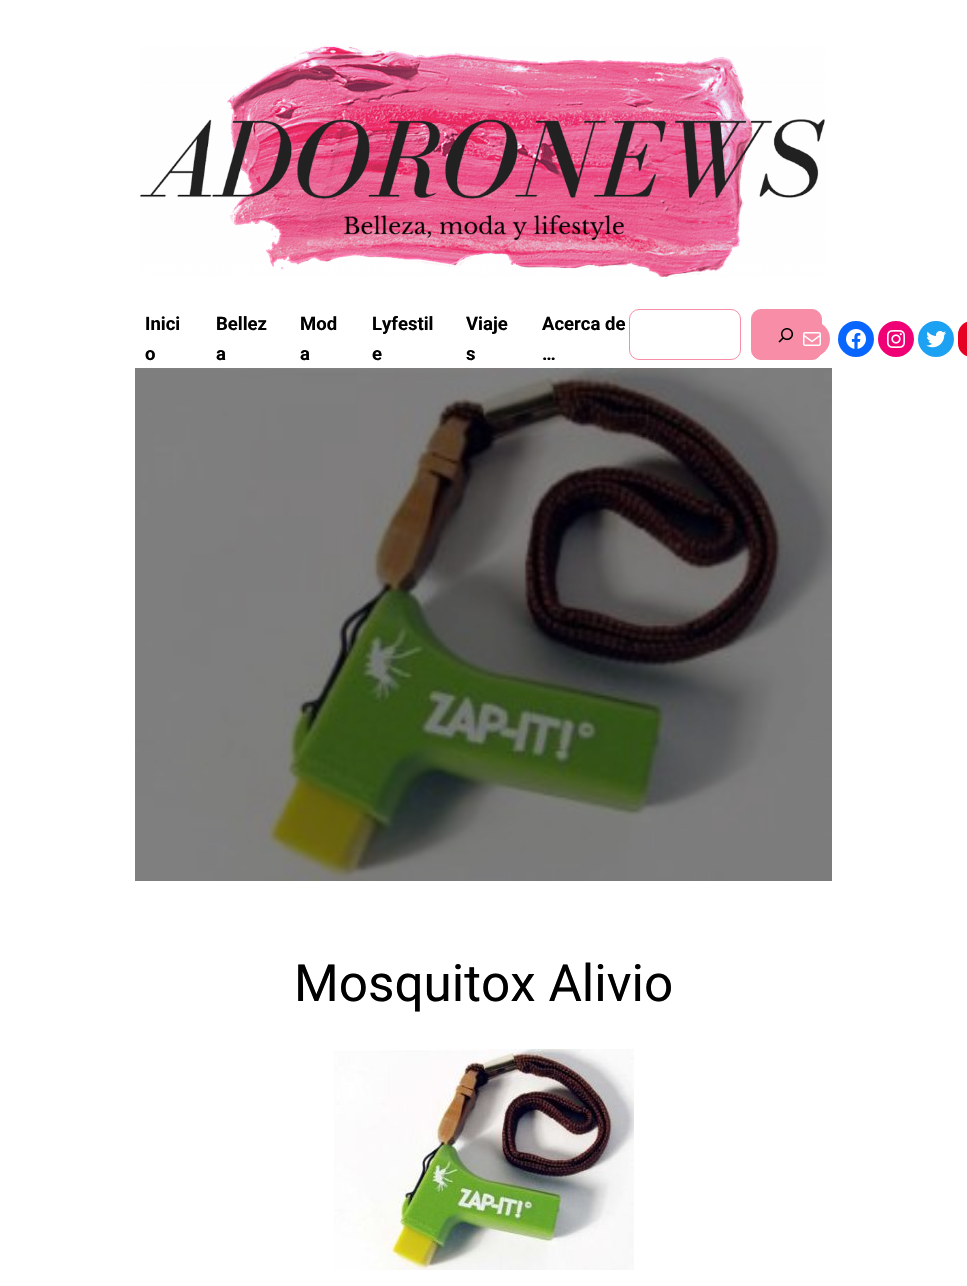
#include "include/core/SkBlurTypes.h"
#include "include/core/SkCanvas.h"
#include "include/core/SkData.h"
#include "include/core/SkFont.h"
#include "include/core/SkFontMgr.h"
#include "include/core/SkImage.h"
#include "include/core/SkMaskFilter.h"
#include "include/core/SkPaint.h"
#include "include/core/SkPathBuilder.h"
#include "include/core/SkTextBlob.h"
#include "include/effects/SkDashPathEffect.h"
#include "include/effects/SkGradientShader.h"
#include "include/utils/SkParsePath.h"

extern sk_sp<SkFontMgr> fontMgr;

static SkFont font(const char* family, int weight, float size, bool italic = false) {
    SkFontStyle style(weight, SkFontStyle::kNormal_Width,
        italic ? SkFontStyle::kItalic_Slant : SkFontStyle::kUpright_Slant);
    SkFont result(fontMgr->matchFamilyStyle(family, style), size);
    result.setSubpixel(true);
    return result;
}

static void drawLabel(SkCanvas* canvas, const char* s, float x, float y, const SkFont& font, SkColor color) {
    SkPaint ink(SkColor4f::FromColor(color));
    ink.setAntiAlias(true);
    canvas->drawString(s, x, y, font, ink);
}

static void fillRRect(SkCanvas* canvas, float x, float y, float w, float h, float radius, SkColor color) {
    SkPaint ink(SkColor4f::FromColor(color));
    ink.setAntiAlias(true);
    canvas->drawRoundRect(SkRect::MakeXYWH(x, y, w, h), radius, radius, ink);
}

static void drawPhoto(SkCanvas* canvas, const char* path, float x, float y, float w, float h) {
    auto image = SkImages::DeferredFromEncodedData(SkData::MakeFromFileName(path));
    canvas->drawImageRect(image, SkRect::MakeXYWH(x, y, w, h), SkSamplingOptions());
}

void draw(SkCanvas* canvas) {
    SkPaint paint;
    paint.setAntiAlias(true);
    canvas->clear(0xFFFFFFFF);
    drawPhoto(canvas, "assets/img1.png", 140, 46, 685, 231);
    SkFont font1 = font("Roboto", 700, 18.5f);
    drawLabel(canvas, "Inici", 145, 330, font1, 0xFF000000);
    drawLabel(canvas, "o", 145, 360, font1, 0xFF000000);
    drawLabel(canvas, "Bellez", 216, 330, font1, 0xFF000000);
    drawLabel(canvas, "a", 216, 360, font1, 0xFF000000);
    drawLabel(canvas, "Mod", 300, 330, font1, 0xFF000000);
    drawLabel(canvas, "a", 300, 360, font1, 0xFF000000);
    drawLabel(canvas, "Lyfestil", 372, 330, font1, 0xFF000000);
    drawLabel(canvas, "e", 372, 360, font1, 0xFF000000);
    drawLabel(canvas, "Viaje", 466, 330, font1, 0xFF000000);
    drawLabel(canvas, "s", 466, 360, font1, 0xFF000000);
    drawLabel(canvas, "Acerca de", 542, 330, font1, 0xFF000000);
    drawLabel(canvas, "…", 542, 360, font1, 0xFF000000);
    paint.setStroke(true);
    paint.setStrokeWidth(1);
    paint.setColor(0xFFF78DA7);
    canvas->drawRoundRect(SkRect::MakeXYWH(629.5f, 309.5f, 111, 50), 9.5f, 9.5f, paint);
    paint.setStroke(false);
    canvas->drawRoundRect(SkRect::MakeXYWH(751.5f, 309.5f, 70, 50), 9.5f, 9.5f, paint);
    paint.setStroke(true);
    canvas->drawRoundRect(SkRect::MakeXYWH(751.5f, 309.5f, 70, 50), 9.5f, 9.5f, paint);
    drawPhoto(canvas, "assets/img2.png", 778, 328, 16, 15);
    paint.setStroke(false);
    canvas->drawCircle(812, 339, 18, paint);
    drawPhoto(canvas, "assets/img3.png", 803, 332, 18, 14);
    paint.setColor(0xFF0866FF);
    canvas->drawCircle(856, 339, 18, paint);
    drawPhoto(canvas, "assets/img4.png", 846, 329, 20, 20);
    paint.setColor(0xFFF00075);
    canvas->drawCircle(896, 339, 18, paint);
    drawPhoto(canvas, "assets/img5.png", 887, 330, 18, 18);
    paint.setColor(0xFF1DA1F2);
    canvas->drawCircle(936, 339, 18, paint);
    drawPhoto(canvas, "assets/img6.png", 926, 331, 20, 17);
    fillRRect(canvas, 958, 321, 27, 36, 18, 0xFFE60122);
    drawPhoto(canvas, "assets/img7.png", 135, 368, 697, 513);
    SkFont font2 = font("Roboto", 400, 51.25f);
    drawLabel(canvas, "Mosquitox Alivio", 294, 1001, font2, 0xFF000000);
    drawPhoto(canvas, "assets/img8.png", 334, 1049, 300, 221);
}
